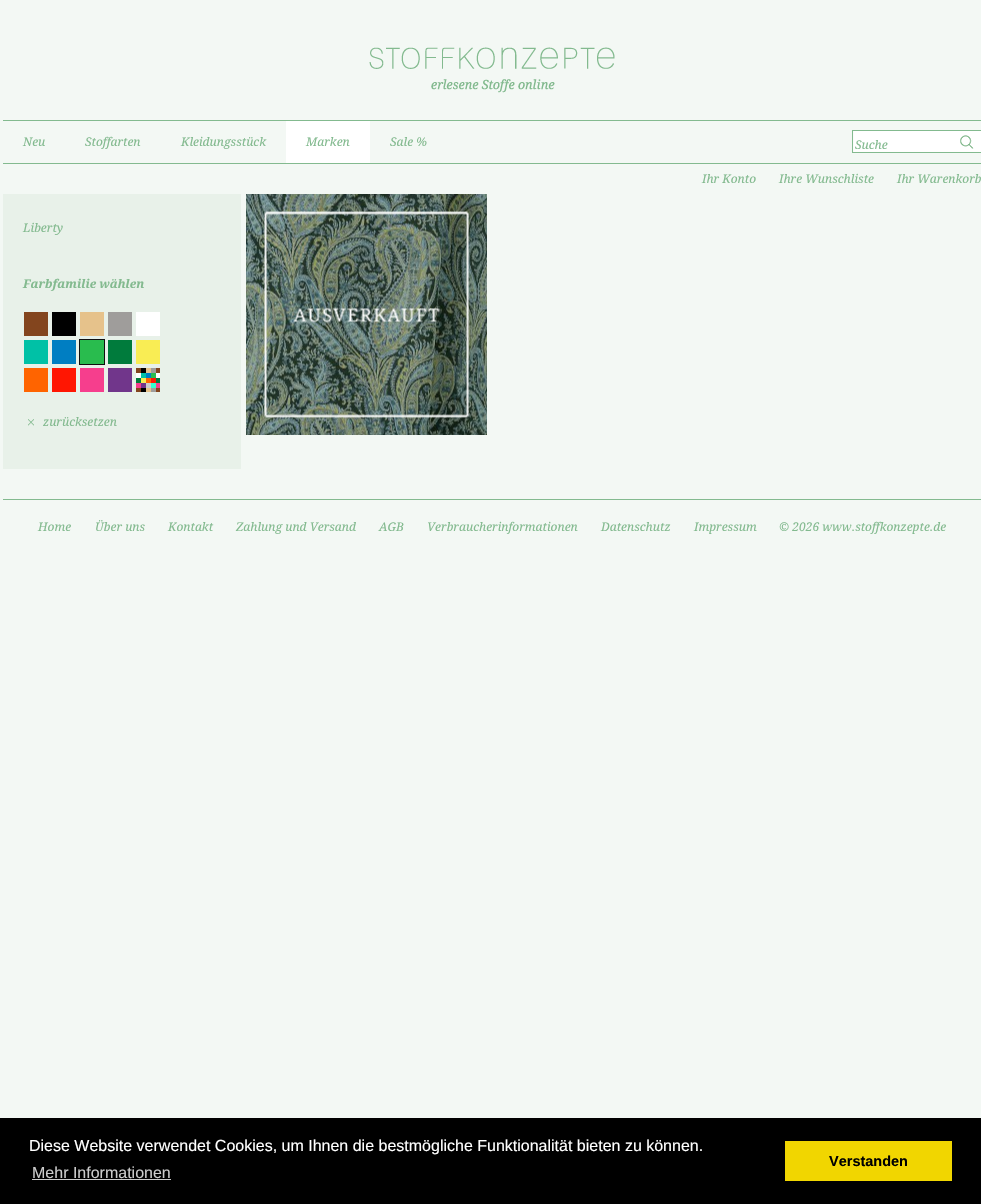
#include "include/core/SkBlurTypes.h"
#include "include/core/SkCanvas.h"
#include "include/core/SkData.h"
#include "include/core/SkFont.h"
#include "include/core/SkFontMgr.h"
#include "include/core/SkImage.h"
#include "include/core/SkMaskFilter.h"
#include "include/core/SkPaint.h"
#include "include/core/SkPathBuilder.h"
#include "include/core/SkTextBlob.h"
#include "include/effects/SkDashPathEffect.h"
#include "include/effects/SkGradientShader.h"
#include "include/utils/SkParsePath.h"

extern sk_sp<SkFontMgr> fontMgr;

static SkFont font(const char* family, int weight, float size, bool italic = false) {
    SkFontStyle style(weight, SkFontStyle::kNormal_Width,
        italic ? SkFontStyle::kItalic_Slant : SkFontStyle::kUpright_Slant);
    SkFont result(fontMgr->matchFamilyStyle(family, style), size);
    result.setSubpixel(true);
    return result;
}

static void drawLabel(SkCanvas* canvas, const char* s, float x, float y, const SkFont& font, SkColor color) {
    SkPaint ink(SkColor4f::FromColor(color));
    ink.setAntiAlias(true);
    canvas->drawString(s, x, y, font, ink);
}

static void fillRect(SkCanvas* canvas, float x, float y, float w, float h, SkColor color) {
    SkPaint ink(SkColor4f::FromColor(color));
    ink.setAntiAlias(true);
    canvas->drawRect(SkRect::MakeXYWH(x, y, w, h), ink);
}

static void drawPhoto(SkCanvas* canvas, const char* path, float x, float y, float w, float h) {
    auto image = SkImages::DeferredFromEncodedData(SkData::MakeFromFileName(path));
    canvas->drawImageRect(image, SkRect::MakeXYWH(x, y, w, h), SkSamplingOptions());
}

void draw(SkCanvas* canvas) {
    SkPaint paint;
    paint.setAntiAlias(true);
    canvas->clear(0xFFF3F8F4);
    drawPhoto(canvas, "assets/img1.png", 369, 47, 246, 46);
    fillRect(canvas, 3, 120, 978, 1, 0xFF83BA8F);
    fillRect(canvas, 3, 163, 978, 1, 0xFF83BA8F);
    SkFont font1 = font("Droid Serif", 400, 12, true);
    drawLabel(canvas, "Neu", 23, 146, font1, 0xFF83BA8F);
    drawLabel(canvas, "Stoffarten", 85, 146, font1, 0xFF83BA8F);
    drawLabel(canvas, "Kleidungsstück", 181, 146, font1, 0xFF83BA8F);
    fillRect(canvas, 286, 121, 84, 42, 0xFFFFFFFF);
    drawLabel(canvas, "Marken", 306, 146, font1, 0xFF83BA8F);
    drawLabel(canvas, "Sale %", 390, 146, font1, 0xFF83BA8F);
    drawPhoto(canvas, "assets/img2.png", 852, 130, 129, 23);
    drawLabel(canvas, "Suche", 855, 149, font1, 0xFF83BA8F);
    drawLabel(canvas, "Ihr Konto", 702, 183, font1, 0xFF83BA8F);
    drawLabel(canvas, "Ihre Wunschliste", 779, 183, font1, 0xFF83BA8F);
    drawLabel(canvas, "Ihr Warenkorb", 897, 183, font1, 0xFF83BA8F);
    fillRect(canvas, 3, 194, 238, 275, 0xFFE8F1E9);
    drawLabel(canvas, "Liberty", 23, 232, font1, 0xFF83BA8F);
    SkFont font2 = font("Droid Serif", 700, 12, true);
    drawLabel(canvas, "Farbfamilie wählen", 23, 288, font2, 0xFF83BA8F);
    fillRect(canvas, 24, 312, 24, 24, 0xFF83451E);
    fillRect(canvas, 52, 312, 24, 24, 0xFF000000);
    fillRect(canvas, 80, 312, 24, 24, 0xFFE6C28B);
    fillRect(canvas, 108, 312, 24, 24, 0xFF9F9D9B);
    fillRect(canvas, 136, 312, 24, 24, 0xFFFFFFFF);
    fillRect(canvas, 24, 340, 24, 24, 0xFF00C1A6);
    fillRect(canvas, 52, 340, 24, 24, 0xFF007EC2);
    paint.setColor(0xFF29BC4E);
    canvas->drawRect(SkRect::MakeXYWH(79.5f, 339.5f, 25, 25), paint);
    paint.setStroke(true);
    paint.setStrokeWidth(1);
    paint.setColor(0xFF101010);
    canvas->drawRect(SkRect::MakeXYWH(79.5f, 339.5f, 25, 25), paint);
    fillRect(canvas, 108, 340, 24, 24, 0xFF007B3C);
    fillRect(canvas, 136, 340, 24, 24, 0xFFF9ED54);
    fillRect(canvas, 24, 368, 24, 24, 0xFFFF6400);
    fillRect(canvas, 52, 368, 24, 24, 0xFFFF1602);
    fillRect(canvas, 80, 368, 24, 24, 0xFFF63E8D);
    fillRect(canvas, 108, 368, 24, 24, 0xFF71368B);
    drawPhoto(canvas, "assets/img3.png", 136, 368, 24, 24);
    drawPhoto(canvas, "assets/img4.png", 28, 419, 6, 7);
    drawLabel(canvas, "zurücksetzen", 43, 426, font1, 0xFF83BA8F);
    drawPhoto(canvas, "assets/img5.png", 246, 194, 241, 241);
    drawPhoto(canvas, "assets/img6.png", 264, 211, 205, 207);
    fillRect(canvas, 3, 499, 978, 1, 0xFF83BA8F);
    drawLabel(canvas, "Home", 38, 531, font1, 0xFF83BA8F);
    drawLabel(canvas, "Über uns", 95, 531, font1, 0xFF83BA8F);
    drawLabel(canvas, "Kontakt", 168, 531, font1, 0xFF83BA8F);
    drawLabel(canvas, "Zahlung und Versand", 236, 531, font1, 0xFF83BA8F);
    drawLabel(canvas, "AGB", 379, 531, font1, 0xFF83BA8F);
    drawLabel(canvas, "Verbraucherinformationen", 427, 531, font1, 0xFF83BA8F);
    drawLabel(canvas, "Datenschutz", 601, 531, font1, 0xFF83BA8F);
    drawLabel(canvas, "Impressum", 694, 531, font1, 0xFF83BA8F);
    drawLabel(canvas, "© 2026 www.stoffkonzepte.de", 779, 531, font1, 0xFF83BA8F);
    fillRect(canvas, 0, 1118, 981, 86, 0xFF000000);
    SkFont font3 = font("Liberation Sans", 400, 16);
    drawLabel(canvas, "Diese Website verwendet Cookies, um Ihnen die bestmögliche Funktionalität bieten zu können.", 29, 1151, font3, 0xFFFFFFFF);
    drawLabel(canvas, "Mehr Informationen", 32, 1178, font3, 0xFFCCCCCC);
    fillRect(canvas, 32, 1179, 139, 1, 0xFFCCCCCC);
    fillRect(canvas, 785, 1141, 167, 40, 0xFFF1D600);
    SkFont font4 = font("Liberation Sans", 700, 14.5f);
    drawLabel(canvas, "Verstanden", 829, 1166, font4, 0xFF000000);
}
